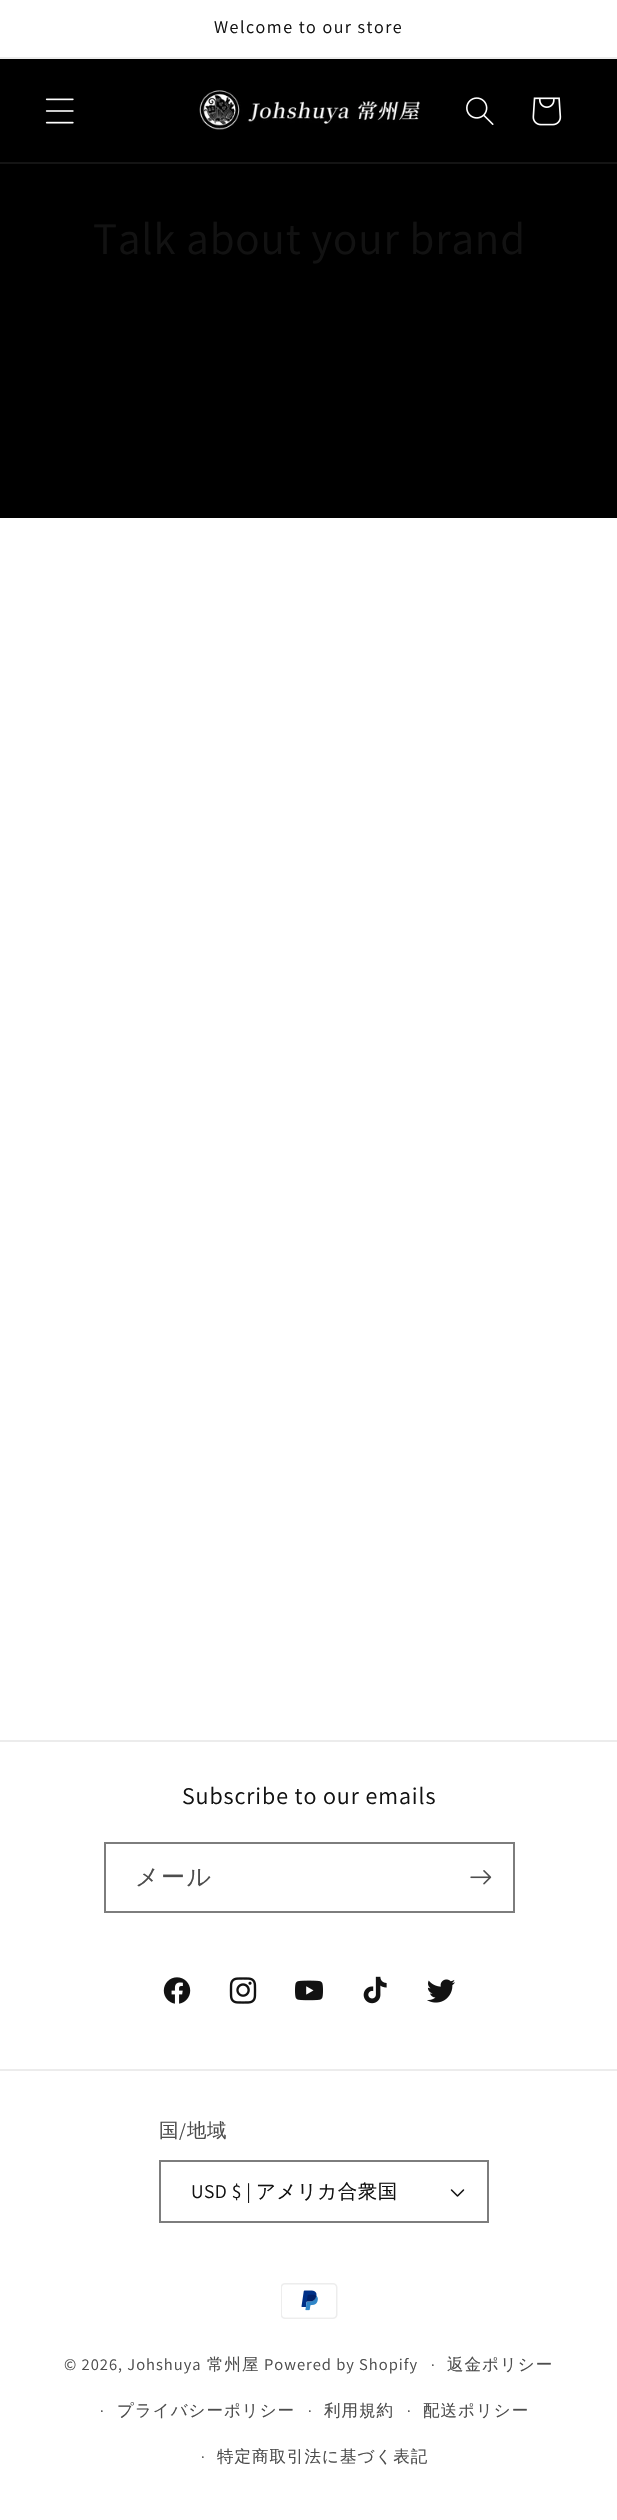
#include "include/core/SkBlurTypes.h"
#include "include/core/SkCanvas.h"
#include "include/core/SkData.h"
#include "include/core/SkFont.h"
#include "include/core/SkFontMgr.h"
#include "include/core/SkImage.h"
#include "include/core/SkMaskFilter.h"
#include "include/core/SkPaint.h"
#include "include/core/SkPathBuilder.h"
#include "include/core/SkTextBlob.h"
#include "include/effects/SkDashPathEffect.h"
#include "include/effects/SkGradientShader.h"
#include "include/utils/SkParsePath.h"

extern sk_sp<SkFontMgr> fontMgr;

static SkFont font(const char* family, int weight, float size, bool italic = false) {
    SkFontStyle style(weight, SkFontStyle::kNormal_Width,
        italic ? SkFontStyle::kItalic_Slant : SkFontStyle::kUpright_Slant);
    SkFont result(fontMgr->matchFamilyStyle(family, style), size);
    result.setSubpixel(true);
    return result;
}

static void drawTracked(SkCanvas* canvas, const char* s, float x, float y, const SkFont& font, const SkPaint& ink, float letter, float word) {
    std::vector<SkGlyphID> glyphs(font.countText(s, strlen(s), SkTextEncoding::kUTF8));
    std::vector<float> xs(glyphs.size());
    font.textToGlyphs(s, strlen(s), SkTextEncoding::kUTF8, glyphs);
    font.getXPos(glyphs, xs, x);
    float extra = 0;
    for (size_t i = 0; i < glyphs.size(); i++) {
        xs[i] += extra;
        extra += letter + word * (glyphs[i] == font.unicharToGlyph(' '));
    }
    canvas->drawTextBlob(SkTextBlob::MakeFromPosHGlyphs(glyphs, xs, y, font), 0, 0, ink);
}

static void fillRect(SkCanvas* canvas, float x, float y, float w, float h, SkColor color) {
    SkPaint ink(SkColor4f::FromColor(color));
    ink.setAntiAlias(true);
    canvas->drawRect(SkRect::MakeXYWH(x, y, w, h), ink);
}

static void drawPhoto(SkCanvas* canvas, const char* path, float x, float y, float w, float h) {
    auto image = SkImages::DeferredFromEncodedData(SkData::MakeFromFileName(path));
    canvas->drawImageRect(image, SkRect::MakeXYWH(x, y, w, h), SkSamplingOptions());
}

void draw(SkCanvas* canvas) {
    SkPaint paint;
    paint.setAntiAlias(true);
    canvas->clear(0xFFFFFFFF);
    fillRect(canvas, 0, 57, 617, 2, 0xFFECECEC);
    SkFont font1 = font("Assistant", 400, 18);
    paint.setColor(0xFF121212);
    drawTracked(canvas, "Welcome to our store", 214, 33, font1, paint, 1.5f, 0);
    fillRect(canvas, 0, 59, 617, 103, 0xFF000000);
    fillRect(canvas, 0, 162, 617, 2, 0xFF141414);
    drawPhoto(canvas, "assets/img1.png", 45, 98, 29, 26);
    drawPhoto(canvas, "assets/img2.png", 199, 90, 221, 40);
    drawPhoto(canvas, "assets/img3.png", 466, 97, 28, 28);
    drawPhoto(canvas, "assets/img4.png", 532, 97, 30, 29);
    fillRect(canvas, 0, 164, 617, 354, 0xFF000000);
    SkFont font2 = font("Assistant", 400, 45);
    drawTracked(canvas, "Talk about your brand", 93, 254, font2, paint, 0.9f, 0);
    fillRect(canvas, 0, 1740, 617, 2, 0xFFECECEC);
    SkFont font3 = font("Assistant", 400, 24);
    drawTracked(canvas, "Subscribe to our emails", 182, 1804, font3, paint, 0.9f, 0);
    paint.setStroke(true);
    paint.setStrokeWidth(2);
    paint.setColor(0xFF7D7D7D);
    canvas->drawRect(SkRect::MakeXYWH(105, 1843, 409, 69), paint);
    SkFont font4 = font("WenQuanYi Zen Hei", 500, 24);
    paint.setStroke(false);
    paint.setColor(0xFF4D4D4D);
    drawTracked(canvas, "メール", 135, 1885, font4, paint, 1.5f, 0);
    drawPhoto(canvas, "assets/img5.png", 470, 1870, 22, 15);
    drawPhoto(canvas, "assets/img6.png", 163, 1977, 28, 27);
    drawPhoto(canvas, "assets/img7.png", 229, 1977, 28, 27);
    drawPhoto(canvas, "assets/img8.png", 295, 1980, 28, 21);
    drawPhoto(canvas, "assets/img9.png", 363, 1976, 24, 28);
    drawPhoto(canvas, "assets/img10.png", 427, 1979, 28, 24);
    fillRect(canvas, 0, 2069, 617, 2, 0xFFECECEC);
    SkFont font5 = font("WenQuanYi Zen Hei", 500, 19.5f);
    drawTracked(canvas, "国", 159, 2137, font5, paint, 0.5f, 0);
    SkFont font6 = font("Assistant", 400, 19.5f);
    drawTracked(canvas, "/", 179, 2137, font6, paint, 0.5f, 0);
    drawTracked(canvas, "地域", 187, 2137, font5, paint, 0.5f, 0);
    drawPhoto(canvas, "assets/img11.png", 450, 2189, 15, 8);
    paint.setStroke(true);
    paint.setColor(0xFF7D7D7D);
    canvas->drawRect(SkRect::MakeXYWH(160, 2161, 328, 61), paint);
    paint.setStroke(false);
    paint.setColor(0xFF121212);
    drawTracked(canvas, "USD $ |", 191, 2198, font6, paint, 0.5f, 0);
    drawTracked(canvas, "アメリカ合衆国", 256, 2198, font5, paint, 0.5f, 0);
    drawPhoto(canvas, "assets/img12.png", 281, 2283, 57, 36);
    SkFont font7 = font("Assistant", 400, 15);
    paint.setColor(0xFF4D4D4D);
    drawTracked(canvas, "·", 431, 2370, font7, paint, 1, 0);
    SkFont font8 = font("WenQuanYi Zen Hei", 500, 16.5f);
    drawTracked(canvas, "返金ポリシー", 447, 2370, font8, paint, 1, 0);
    drawTracked(canvas, "·", 100, 2416, font7, paint, 1, 0);
    drawTracked(canvas, "プライバシーポリシー", 117, 2416, font8, paint, 1, 0);
    drawTracked(canvas, "·", 308, 2416, font7, paint, 1, 0);
    drawTracked(canvas, "利用規約", 324, 2416, font8, paint, 1, 0);
    drawTracked(canvas, "·", 407, 2416, font7, paint, 1, 0);
    drawTracked(canvas, "配送ポリシー", 423, 2416, font8, paint, 1, 0);
    drawTracked(canvas, "·", 201, 2462, font7, paint, 1, 0);
    drawTracked(canvas, "特定商取引法に基づく表記", 217, 2462, font8, paint, 1, 0);
    SkFont font9 = font("Assistant", 400, 16.5f);
    drawTracked(canvas, "© 2026, Johshuya", 64, 2370, font9, paint, 1, 0);
    drawTracked(canvas, "常州屋", 207, 2370, font8, paint, 1, 0);
    drawTracked(canvas, "Powered by Shopify", 264, 2370, font9, paint, 1, 0);
}
